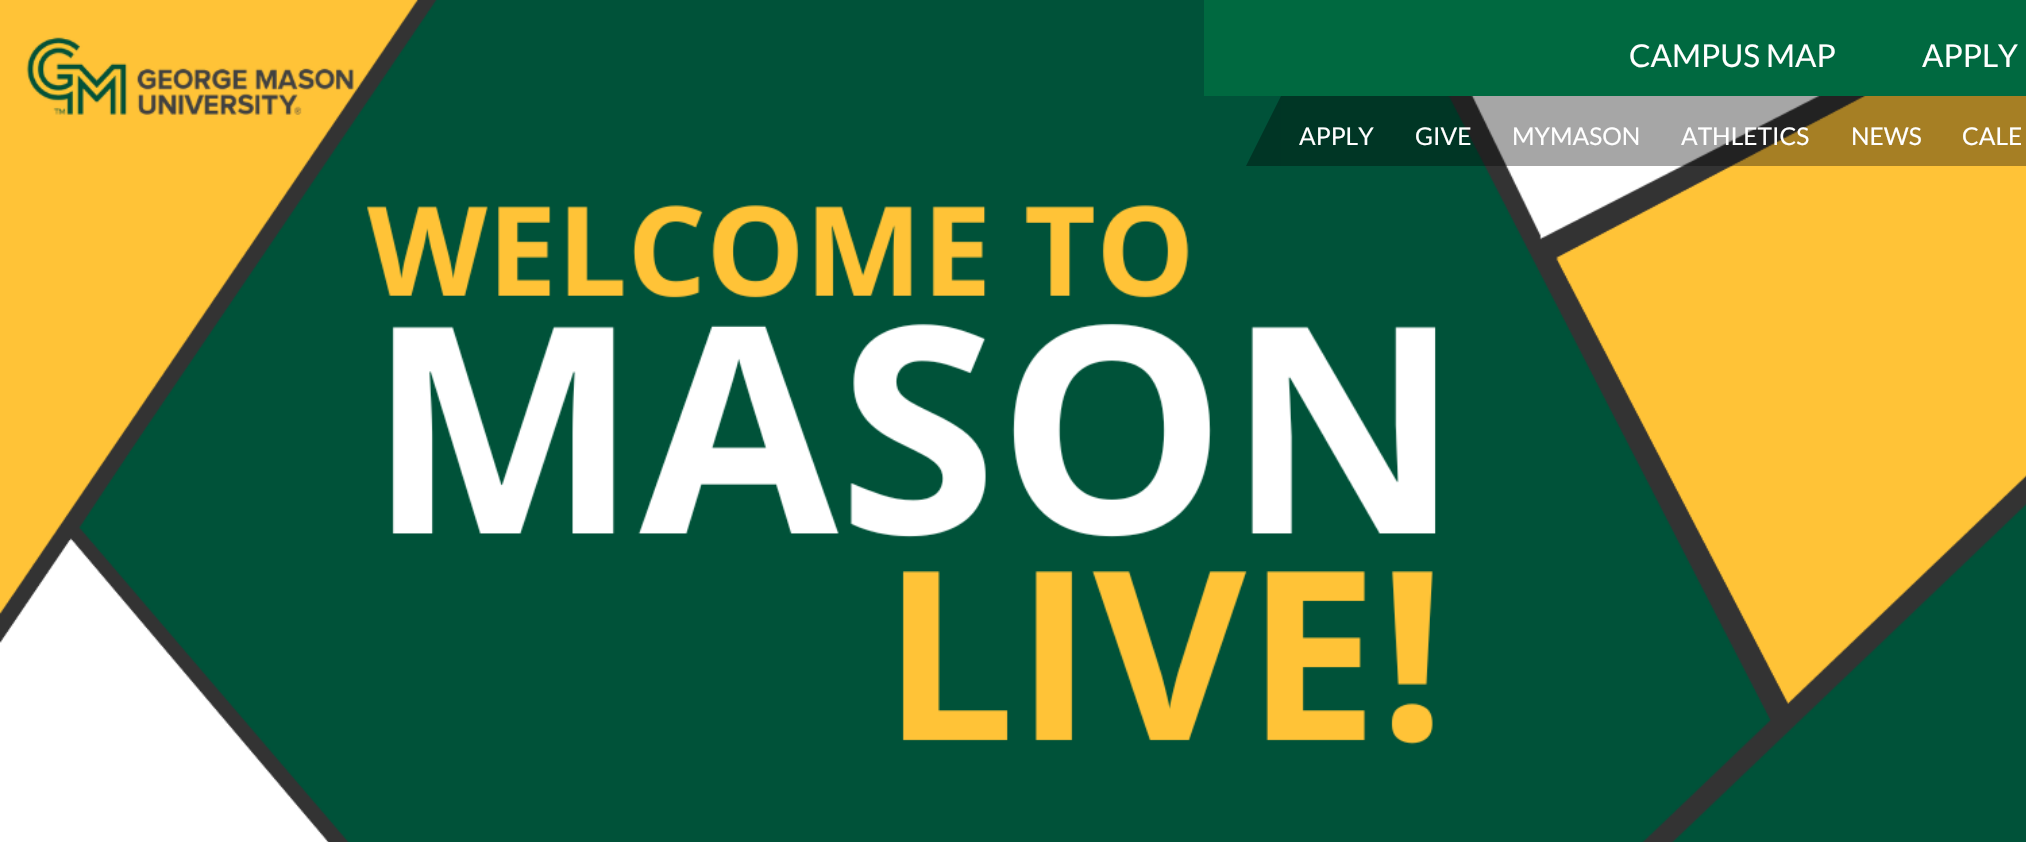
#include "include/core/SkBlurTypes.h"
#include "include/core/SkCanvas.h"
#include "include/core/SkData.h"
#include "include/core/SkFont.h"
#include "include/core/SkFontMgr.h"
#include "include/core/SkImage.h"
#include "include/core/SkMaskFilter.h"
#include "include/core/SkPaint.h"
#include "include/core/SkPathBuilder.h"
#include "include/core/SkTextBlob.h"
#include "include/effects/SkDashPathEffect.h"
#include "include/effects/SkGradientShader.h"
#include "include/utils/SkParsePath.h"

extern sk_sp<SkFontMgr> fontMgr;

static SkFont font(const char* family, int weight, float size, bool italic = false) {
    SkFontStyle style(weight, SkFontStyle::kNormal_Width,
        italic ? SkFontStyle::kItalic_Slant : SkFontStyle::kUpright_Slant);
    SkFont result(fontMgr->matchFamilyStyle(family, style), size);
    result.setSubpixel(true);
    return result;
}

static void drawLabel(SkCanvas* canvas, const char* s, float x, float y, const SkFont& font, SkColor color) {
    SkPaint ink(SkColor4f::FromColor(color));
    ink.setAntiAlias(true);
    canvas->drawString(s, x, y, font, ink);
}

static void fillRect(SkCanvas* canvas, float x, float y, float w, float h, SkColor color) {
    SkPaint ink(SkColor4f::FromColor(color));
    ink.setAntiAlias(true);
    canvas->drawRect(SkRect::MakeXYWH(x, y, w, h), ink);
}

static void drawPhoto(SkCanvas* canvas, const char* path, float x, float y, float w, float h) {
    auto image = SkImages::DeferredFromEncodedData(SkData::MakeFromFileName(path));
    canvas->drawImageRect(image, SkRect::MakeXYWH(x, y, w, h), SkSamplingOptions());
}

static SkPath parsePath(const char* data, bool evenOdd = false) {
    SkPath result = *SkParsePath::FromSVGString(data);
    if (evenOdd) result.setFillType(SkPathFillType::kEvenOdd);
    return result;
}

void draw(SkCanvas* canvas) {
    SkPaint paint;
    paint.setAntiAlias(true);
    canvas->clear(0xFFFFFFFF);
    drawPhoto(canvas, "assets/img1.png", 0, 0, 2026, 842);
    fillRect(canvas, 1204, 0, 822, 96, 0xFF006940);
    SkFont font1 = font("Lato", 400, 31.5f);
    drawLabel(canvas, "CAMPUS MAP", 1629, 67, font1, 0xFFFFFFFF);
    drawLabel(canvas, "APPLY", 1922, 67, font1, 0xFFFFFFFF);
    fillRect(canvas, 1281, 96, 745, 70, 0x59000000);
    paint.setColor(0xFF003525);
    canvas->drawPath(parsePath("M1281 166H1246L1281 96Z"), paint);
    SkFont font2 = font("Lato", 400, 24.5f);
    drawLabel(canvas, "APPLY", 1299, 145, font2, 0xFFFFFFFF);
    drawLabel(canvas, "GIVE", 1415, 145, font2, 0xFFFFFFFF);
    drawLabel(canvas, "MYMASON", 1512, 145, font2, 0xFFFFFFFF);
    drawLabel(canvas, "ATHLETICS", 1681, 145, font2, 0xFFFFFFFF);
    drawLabel(canvas, "NEWS", 1851, 145, font2, 0xFFFFFFFF);
    drawLabel(canvas, "CALE", 1962, 145, font2, 0xFFFFFFFF);
}
